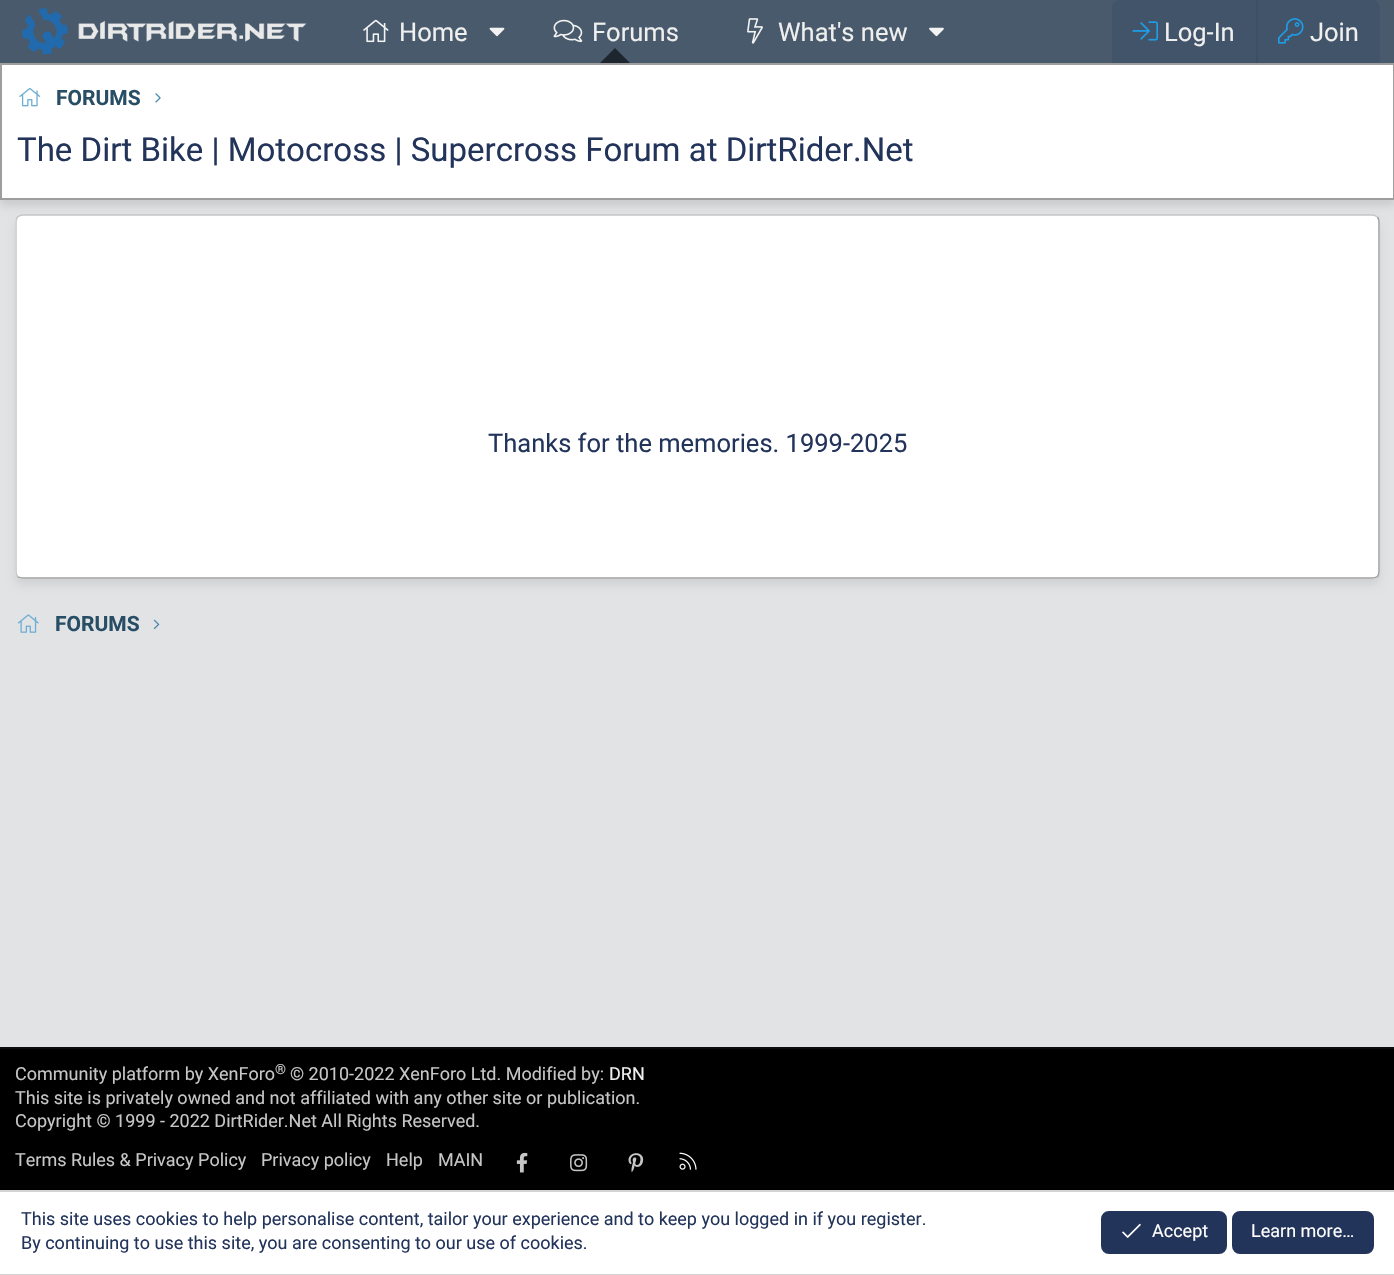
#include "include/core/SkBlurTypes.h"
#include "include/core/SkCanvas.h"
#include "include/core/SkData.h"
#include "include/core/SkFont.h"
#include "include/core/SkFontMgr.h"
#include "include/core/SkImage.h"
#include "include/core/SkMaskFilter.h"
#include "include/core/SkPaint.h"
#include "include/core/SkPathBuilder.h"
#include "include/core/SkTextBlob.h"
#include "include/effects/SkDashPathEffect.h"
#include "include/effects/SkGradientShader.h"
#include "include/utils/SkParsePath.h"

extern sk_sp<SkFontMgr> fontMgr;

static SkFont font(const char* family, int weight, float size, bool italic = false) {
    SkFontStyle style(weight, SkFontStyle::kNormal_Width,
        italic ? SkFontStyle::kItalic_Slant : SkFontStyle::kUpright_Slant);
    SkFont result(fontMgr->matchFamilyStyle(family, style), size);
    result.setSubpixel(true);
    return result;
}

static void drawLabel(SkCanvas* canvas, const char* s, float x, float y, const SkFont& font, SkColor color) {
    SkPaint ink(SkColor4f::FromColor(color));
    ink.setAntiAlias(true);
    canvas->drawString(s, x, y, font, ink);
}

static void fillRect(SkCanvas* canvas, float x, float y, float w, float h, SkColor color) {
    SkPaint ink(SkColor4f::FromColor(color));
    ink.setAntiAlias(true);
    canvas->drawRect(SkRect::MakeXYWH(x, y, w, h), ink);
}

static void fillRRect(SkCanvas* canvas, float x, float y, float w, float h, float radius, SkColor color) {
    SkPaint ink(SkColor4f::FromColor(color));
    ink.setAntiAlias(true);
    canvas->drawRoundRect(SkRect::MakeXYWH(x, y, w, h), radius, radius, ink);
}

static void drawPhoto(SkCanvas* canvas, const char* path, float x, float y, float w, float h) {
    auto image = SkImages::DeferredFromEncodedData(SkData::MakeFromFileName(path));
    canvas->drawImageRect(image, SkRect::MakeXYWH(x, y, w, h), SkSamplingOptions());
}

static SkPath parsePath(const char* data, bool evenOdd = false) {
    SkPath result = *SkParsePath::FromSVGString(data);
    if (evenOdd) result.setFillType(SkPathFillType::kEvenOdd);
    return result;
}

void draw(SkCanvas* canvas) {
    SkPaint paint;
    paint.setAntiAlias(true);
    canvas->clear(0xFFE2E3E5);
    paint.setColor(0x1A000000);
    paint.setMaskFilter(SkMaskFilter::MakeBlur(kNormal_SkBlurStyle, 4));
    canvas->drawRect(SkRect::MakeXYWH(0, 69, 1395, 137), paint);
    paint.setMaskFilter(nullptr);
    fillRect(canvas, 0, 0, 1394, 63, 0xFF485A6B);
    drawPhoto(canvas, "assets/img1.png", 22, 8, 285, 47);
    drawPhoto(canvas, "assets/img2.png", 363, 19, 26, 24);
    SkFont font1 = font("Roboto", 400, 25.5f);
    drawLabel(canvas, "Home", 399, 41, font1, 0xFFEFEFEF);
    drawPhoto(canvas, "assets/img3.png", 489, 27, 16, 10);
    drawPhoto(canvas, "assets/img4.png", 553, 19, 30, 24);
    drawLabel(canvas, "Forums", 592, 41, font1, 0xFFEFEFEF);
    paint.setColor(0xFF1D262E);
    canvas->drawPath(parsePath("M630 63H600L615 48Z"), paint);
    drawPhoto(canvas, "assets/img5.png", 747, 18, 16, 26);
    drawLabel(canvas, "What's new", 778, 41, font1, 0xFFEFEFEF);
    drawPhoto(canvas, "assets/img6.png", 929, 27, 15, 10);
    paint.setColor(0xFF425469);
    canvas->drawPath(parsePath("M1120 0H1372C1376.5 0 1380 3.5 1380 8V63H1112V8C1112 3.5 1115.5 0 1120 0Z"), paint);
    drawPhoto(canvas, "assets/img7.png", 1132, 21, 26, 20);
    drawLabel(canvas, "Log-In", 1164, 41, font1, 0xFFEFEFEF);
    fillRect(canvas, 1256, 0, 2, 63, 0xFF3D4F67);
    drawPhoto(canvas, "assets/img8.png", 1278, 18, 26, 26);
    drawLabel(canvas, "Join", 1310, 41, font1, 0xFFEFEFEF);
    paint.setColor(0xFFFFFFFF);
    canvas->drawRect(SkRect::MakeXYWH(1, 64, 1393, 135), paint);
    paint.setStroke(true);
    paint.setStrokeWidth(2);
    paint.setColor(0xFF9E9E9E);
    canvas->drawRect(SkRect::MakeXYWH(1, 64, 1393, 135), paint);
    drawPhoto(canvas, "assets/img9.png", 19, 88, 22, 19);
    SkFont font2 = font("Roboto", 700, 21);
    drawLabel(canvas, "FORUMS", 56, 105, font2, 0xFF284E65);
    drawPhoto(canvas, "assets/img10.png", 155, 93, 6, 10);
    SkFont font3 = font("Roboto", 400, 33);
    drawLabel(canvas, "The Dirt Bike | Motocross | Supercross Forum at DirtRider.Net", 17, 161, font3, 0xFF23345B);
    paint.setStroke(false);
    paint.setColor(0x14000000);
    paint.setMaskFilter(SkMaskFilter::MakeBlur(kNormal_SkBlurStyle, 4));
    canvas->drawRoundRect(SkRect::MakeXYWH(15, 221, 1365, 364), 8, 8, paint);
    paint.setMaskFilter(nullptr);
    fillRRect(canvas, 15, 215, 1365, 364, 8, 0xFFFFFFFF);
    paint.setStroke(true);
    paint.setStrokeWidth(1.5f);
    paint.setColor(0xFF9E9E9E);
    canvas->drawPath(parsePath("M1377.5 217C1378.5 218.5 1379 220 1379 222V571.5C1379 573.5 1378.5 575 1377.5 576.5C1376 577.5 1374.5 578 1372.5 578H22.5C20.5 578 19 577.5 17.5 576.5"), paint);
    paint.setColor(0xFFC6C6C6);
    canvas->drawPath(parsePath("M17.5 576.5C16.5 575 16 573.5 16 571.5V222C16 220 16.5 218.5 17.5 217C19 216 20.5 215 22.5 215H1372.5C1374.5 215 1376 216 1377.5 217"), paint);
    drawLabel(canvas, "Thanks for the memories. 1999-2025", 488, 452, font1, 0xFF23345B);
    drawPhoto(canvas, "assets/img11.png", 17, 614, 22, 19);
    drawLabel(canvas, "FORUMS", 55, 631, font2, 0xFF284E65);
    drawPhoto(canvas, "assets/img12.png", 153, 619, 7, 11);
    fillRect(canvas, 0, 1049, 1394, 141, 0xFF000000);
    fillRect(canvas, 0, 1047, 1394, 2, 0xFF0D0D0D);
    SkFont font4 = font("Roboto", 400, 18);
    drawLabel(canvas, "Community platform by XenForo", 15, 1080, font4, 0xFFC6C6C6);
    SkFont font5 = font("Roboto", 400, 14);
    drawLabel(canvas, "®", 275, 1074, font5, 0xFFC6C6C6);
    drawLabel(canvas, "© 2010-2022 XenForo Ltd. Modified by:", 290, 1080, font4, 0xFFC6C6C6);
    drawLabel(canvas, "DRN", 609, 1080, font4, 0xFFEFEFEF);
    drawLabel(canvas, "This site is privately owned and not affiliated with any other site or publication.", 15, 1104, font4, 0xFFC6C6C6);
    drawLabel(canvas, "Copyright © 1999 - 2022 DirtRider.Net All Rights Reserved.", 15, 1127, font4, 0xFFC6C6C6);
    drawLabel(canvas, "Terms Rules & Privacy Policy", 15, 1166, font4, 0xFFC6C6C6);
    drawLabel(canvas, "Privacy policy", 261, 1166, font4, 0xFFC6C6C6);
    drawLabel(canvas, "Help", 386, 1166, font4, 0xFFC6C6C6);
    drawLabel(canvas, "MAIN", 438, 1166, font4, 0xFFC6C6C6);
    drawPhoto(canvas, "assets/img13.png", 516, 1152, 12, 21);
    drawPhoto(canvas, "assets/img14.png", 570, 1154, 18, 18);
    drawPhoto(canvas, "assets/img15.png", 628, 1153, 16, 20);
    drawPhoto(canvas, "assets/img16.png", 679, 1152, 18, 18);
    fillRect(canvas, 0, 1192, 1394, 82, 0xFFFFFFFF);
    fillRect(canvas, 0, 1190, 1394, 2, 0xFFD3D3D3);
    fillRect(canvas, 0, 1274, 1394, 1, 0xFFD3D3D3);
    drawLabel(canvas, "This site uses cookies to help personalise content, tailor your experience and to keep you logged in if you register.", 21, 1225, font4, 0xFF23345B);
    drawLabel(canvas, "By continuing to use this site, you are consenting to our use of cookies.", 21, 1249, font4, 0xFF23345B);
    paint.setStroke(false);
    paint.setColor(0xFF23345B);
    canvas->drawRoundRect(SkRect::MakeXYWH(1102, 1212, 124, 41), 7, 7, paint);
    paint.setStroke(true);
    paint.setStrokeWidth(2);
    canvas->drawRoundRect(SkRect::MakeXYWH(1102, 1212, 124, 41), 7, 7, paint);
    drawPhoto(canvas, "assets/img17.png", 1122, 1223, 19, 15);
    drawLabel(canvas, "Accept", 1152, 1237, font4, 0xFFFFFFFF);
    paint.setStroke(false);
    canvas->drawRoundRect(SkRect::MakeXYWH(1233, 1212, 140, 41), 7, 7, paint);
    paint.setStroke(true);
    canvas->drawRoundRect(SkRect::MakeXYWH(1233, 1212, 140, 41), 7, 7, paint);
    drawLabel(canvas, "Learn more…", 1251, 1237, font4, 0xFFFFFFFF);
}
